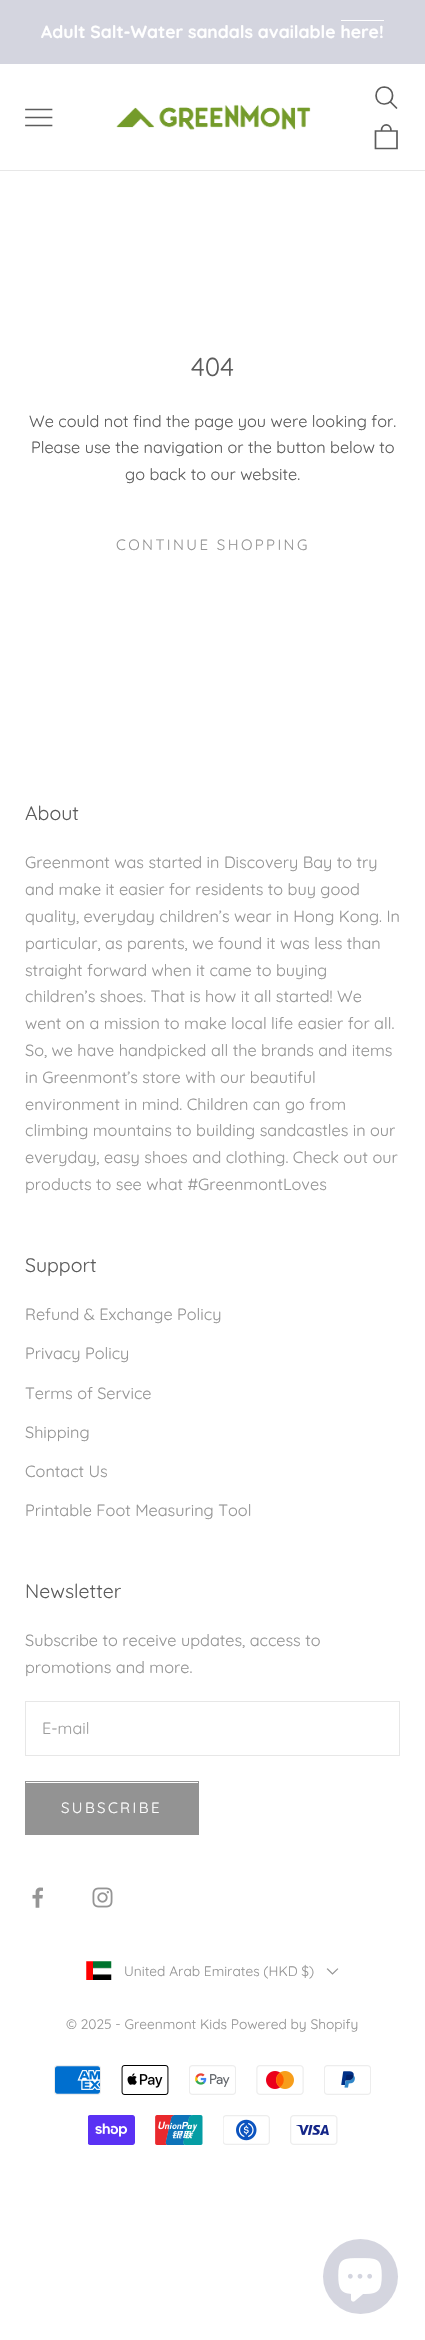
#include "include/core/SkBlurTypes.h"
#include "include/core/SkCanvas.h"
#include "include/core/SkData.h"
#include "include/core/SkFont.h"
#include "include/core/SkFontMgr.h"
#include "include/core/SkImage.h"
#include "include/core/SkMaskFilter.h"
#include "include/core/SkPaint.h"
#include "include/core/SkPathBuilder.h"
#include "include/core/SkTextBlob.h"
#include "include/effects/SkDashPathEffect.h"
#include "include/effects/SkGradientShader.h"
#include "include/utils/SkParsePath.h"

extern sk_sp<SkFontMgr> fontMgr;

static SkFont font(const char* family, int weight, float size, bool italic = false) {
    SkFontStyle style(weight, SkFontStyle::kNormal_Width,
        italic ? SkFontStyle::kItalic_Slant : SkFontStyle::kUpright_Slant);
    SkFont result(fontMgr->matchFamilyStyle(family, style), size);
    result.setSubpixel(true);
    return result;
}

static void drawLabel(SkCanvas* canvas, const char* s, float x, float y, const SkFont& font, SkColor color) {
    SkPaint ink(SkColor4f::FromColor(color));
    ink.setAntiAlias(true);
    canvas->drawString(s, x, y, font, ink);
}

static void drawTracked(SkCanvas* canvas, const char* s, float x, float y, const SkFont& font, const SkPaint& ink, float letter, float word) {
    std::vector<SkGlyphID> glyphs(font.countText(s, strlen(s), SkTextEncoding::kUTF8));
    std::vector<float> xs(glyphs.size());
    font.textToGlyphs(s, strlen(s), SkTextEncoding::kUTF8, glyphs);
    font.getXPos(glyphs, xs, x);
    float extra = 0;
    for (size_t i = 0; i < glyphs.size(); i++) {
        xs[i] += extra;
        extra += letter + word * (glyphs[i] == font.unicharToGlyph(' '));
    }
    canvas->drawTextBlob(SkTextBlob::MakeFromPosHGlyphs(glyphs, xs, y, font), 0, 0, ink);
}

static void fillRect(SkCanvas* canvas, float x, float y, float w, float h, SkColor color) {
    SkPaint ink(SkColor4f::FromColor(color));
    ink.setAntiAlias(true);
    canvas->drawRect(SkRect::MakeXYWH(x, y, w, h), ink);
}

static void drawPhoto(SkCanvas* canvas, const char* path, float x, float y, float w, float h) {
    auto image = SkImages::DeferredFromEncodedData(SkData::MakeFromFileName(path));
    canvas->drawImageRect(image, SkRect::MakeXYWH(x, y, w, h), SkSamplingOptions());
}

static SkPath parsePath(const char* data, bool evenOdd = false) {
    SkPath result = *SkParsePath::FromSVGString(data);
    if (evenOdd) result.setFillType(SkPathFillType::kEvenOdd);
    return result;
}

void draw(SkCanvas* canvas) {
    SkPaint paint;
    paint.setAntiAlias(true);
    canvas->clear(0xFFFFFFFF);
    fillRect(canvas, 0, 0, 425, 64, 0xFFD4D5DF);
    fillRect(canvas, 341, 20, 43, 1, 0xFFFFFFFF);
    SkFont font1 = font("Quicksand", 700, 17.5f);
    drawLabel(canvas, "Adult Salt-Water sandals available here!", 41, 38, font1, 0xFFFFFFFF);
    fillRect(canvas, 0, 170, 425, 1, 0xFFE7E7E7);
    paint.setStroke(true);
    paint.setStrokeWidth(1.7f);
    paint.setStrokeCap(SkPaint::kSquare_Cap);
    paint.setColor(0xFF5C5C5C);
    canvas->drawPath(parsePath("M26 125.5H51.5M26 117.5H51.5M26 109.5H51.5"), paint);
    drawPhoto(canvas, "assets/img1.png", 116, 104, 195, 26);
    paint.setStrokeCap(SkPaint::kButt_Cap);
    canvas->drawPath(parsePath("M384.5 87C373 87 373.5 104.5 384.5 104C395.5 103.5 395 87.5 384.5 87Z"), paint);
    paint.setStrokeCap(SkPaint::kRound_Cap);
    canvas->drawPath(parsePath("M390.5 102L396.5 108"), paint);
    paint.setStrokeCap(SkPaint::kButt_Cap);
    canvas->drawPath(parsePath("M397 148.5V131H375.5V148.5ZM381.5 130.5C381.5 123 391 123 391 130.5"), paint);
    SkFont font2 = font("Quicksand", 400, 26);
    drawLabel(canvas, "404", 191, 376, font2, 0xFF5C5C5C);
    SkFont font3 = font("Quicksand", 400, 16.25f);
    drawLabel(canvas, "We could not find the page you were looking for.", 29, 427, font3, 0xFF5C5C5C);
    drawLabel(canvas, "Please use the navigation or the button below to", 31, 453, font3, 0xFF5C5C5C);
    drawLabel(canvas, "go back to our website.", 125, 480, font3, 0xFF5C5C5C);
    SkFont font4 = font("Quicksand", 400, 15);
    paint.setStroke(false);
    paint.setColor(0xFF959595);
    drawTracked(canvas, "CONTINUE SHOPPING", 116, 550, font4, paint, 2.4f, 0);
    SkFont font5 = font("Quicksand", 400, 19.5f);
    drawLabel(canvas, "About", 25, 820, font5, 0xFF5C5C5C);
    drawLabel(canvas, "Greenmont was started in Discovery Bay to try", 25, 868, font3, 0xFF959595);
    drawLabel(canvas, "and make it easier for residents to buy good", 25, 895, font3, 0xFF959595);
    drawLabel(canvas, "quality, everyday children’s wear in Hong Kong. In", 25, 922, font3, 0xFF959595);
    drawLabel(canvas, "particular, as parents, we found it was less than", 25, 949, font3, 0xFF959595);
    drawLabel(canvas, "straight forward when it came to buying", 25, 976, font3, 0xFF959595);
    drawLabel(canvas, "children’s shoes. That is how it all started! We", 25, 1002, font3, 0xFF959595);
    drawLabel(canvas, "went on a mission to make local life easier for all.", 25, 1029, font3, 0xFF959595);
    drawLabel(canvas, "So, we have handpicked all the brands and items", 25, 1056, font3, 0xFF959595);
    drawLabel(canvas, "in Greenmont’s store with our beautiful", 25, 1083, font3, 0xFF959595);
    drawLabel(canvas, "environment in mind. Children can go from", 25, 1110, font3, 0xFF959595);
    drawLabel(canvas, "climbing mountains to building sandcastles in our", 25, 1136, font3, 0xFF959595);
    drawLabel(canvas, "everyday, easy shoes and clothing. Check out our", 25, 1163, font3, 0xFF959595);
    drawLabel(canvas, "products to see what #GreenmontLoves", 25, 1190, font3, 0xFF959595);
    drawLabel(canvas, "Support", 25, 1272, font5, 0xFF5C5C5C);
    drawLabel(canvas, "Refund & Exchange Policy", 25, 1320, font3, 0xFF959595);
    drawLabel(canvas, "Privacy Policy", 25, 1359, font3, 0xFF959595);
    drawLabel(canvas, "Terms of Service", 25, 1399, font3, 0xFF959595);
    drawLabel(canvas, "Shipping", 25, 1438, font3, 0xFF959595);
    drawLabel(canvas, "Contact Us", 25, 1477, font3, 0xFF959595);
    drawLabel(canvas, "Printable Foot Measuring Tool", 25, 1516, font3, 0xFF959595);
    drawLabel(canvas, "Newsletter", 25, 1598, font5, 0xFF5C5C5C);
    drawLabel(canvas, "Subscribe to receive updates, access to", 25, 1646, font3, 0xFF959595);
    drawLabel(canvas, "promotions and more.", 25, 1673, font3, 0xFF959595);
    paint.setStroke(true);
    paint.setStrokeWidth(1);
    paint.setColor(0xFFE7E7E7);
    canvas->drawRect(SkRect::MakeXYWH(25.5f, 1701.5f, 374, 54), paint);
    drawLabel(canvas, "E-mail", 42, 1734, font3, 0xFF9D9D9D);
    fillRect(canvas, 26, 1783, 172, 51, 0xFF939393);
    paint.setColor(0xFF939393);
    canvas->drawRect(SkRect::MakeXYWH(25.5f, 1781.5f, 173, 53), paint);
    paint.setStroke(false);
    paint.setColor(0xFFFFFFFF);
    drawTracked(canvas, "SUBSCRIBE", 61, 1813, font4, paint, 2.4f, 0);
    drawPhoto(canvas, "assets/img2.png", 32, 1887, 11, 21);
    drawPhoto(canvas, "assets/img3.png", 92, 1887, 21, 21);
    drawPhoto(canvas, "assets/img4.png", 86, 1961, 26, 19);
    SkFont font6 = font("Quicksand", 400, 13.75f);
    drawLabel(canvas, "United Arab Emirates (HKD $)", 124, 1976, font6, 0xFF959595);
    paint.setStroke(true);
    paint.setStrokeWidth(1.2f);
    paint.setStrokeCap(SkPaint::kSquare_Cap);
    paint.setColor(0xFF959595);
    canvas->drawPath(parsePath("M327.5 1969L332.5 1974L337.5 1969"), paint);
    drawLabel(canvas, "© 2025 - Greenmont Kids Powered by Shopify", 66, 2029, font6, 0xFF959595);
    drawPhoto(canvas, "assets/img5.png", 54, 2065, 47, 30);
    drawPhoto(canvas, "assets/img6.png", 121, 2065, 48, 30);
    drawPhoto(canvas, "assets/img7.png", 189, 2065, 47, 30);
    drawPhoto(canvas, "assets/img8.png", 256, 2065, 48, 30);
    drawPhoto(canvas, "assets/img9.png", 324, 2065, 47, 30);
    drawPhoto(canvas, "assets/img10.png", 88, 2115, 47, 30);
    drawPhoto(canvas, "assets/img11.png", 155, 2115, 48, 30);
    drawPhoto(canvas, "assets/img12.png", 223, 2115, 47, 30);
    drawPhoto(canvas, "assets/img13.png", 290, 2115, 48, 30);
    paint.setStroke(false);
    paint.setColor(0xFFD4D5DF);
    canvas->drawCircle(360.5f, 2276.5f, 37.5f, paint);
    drawPhoto(canvas, "assets/img14.png", 338, 2258, 44, 44);
}
